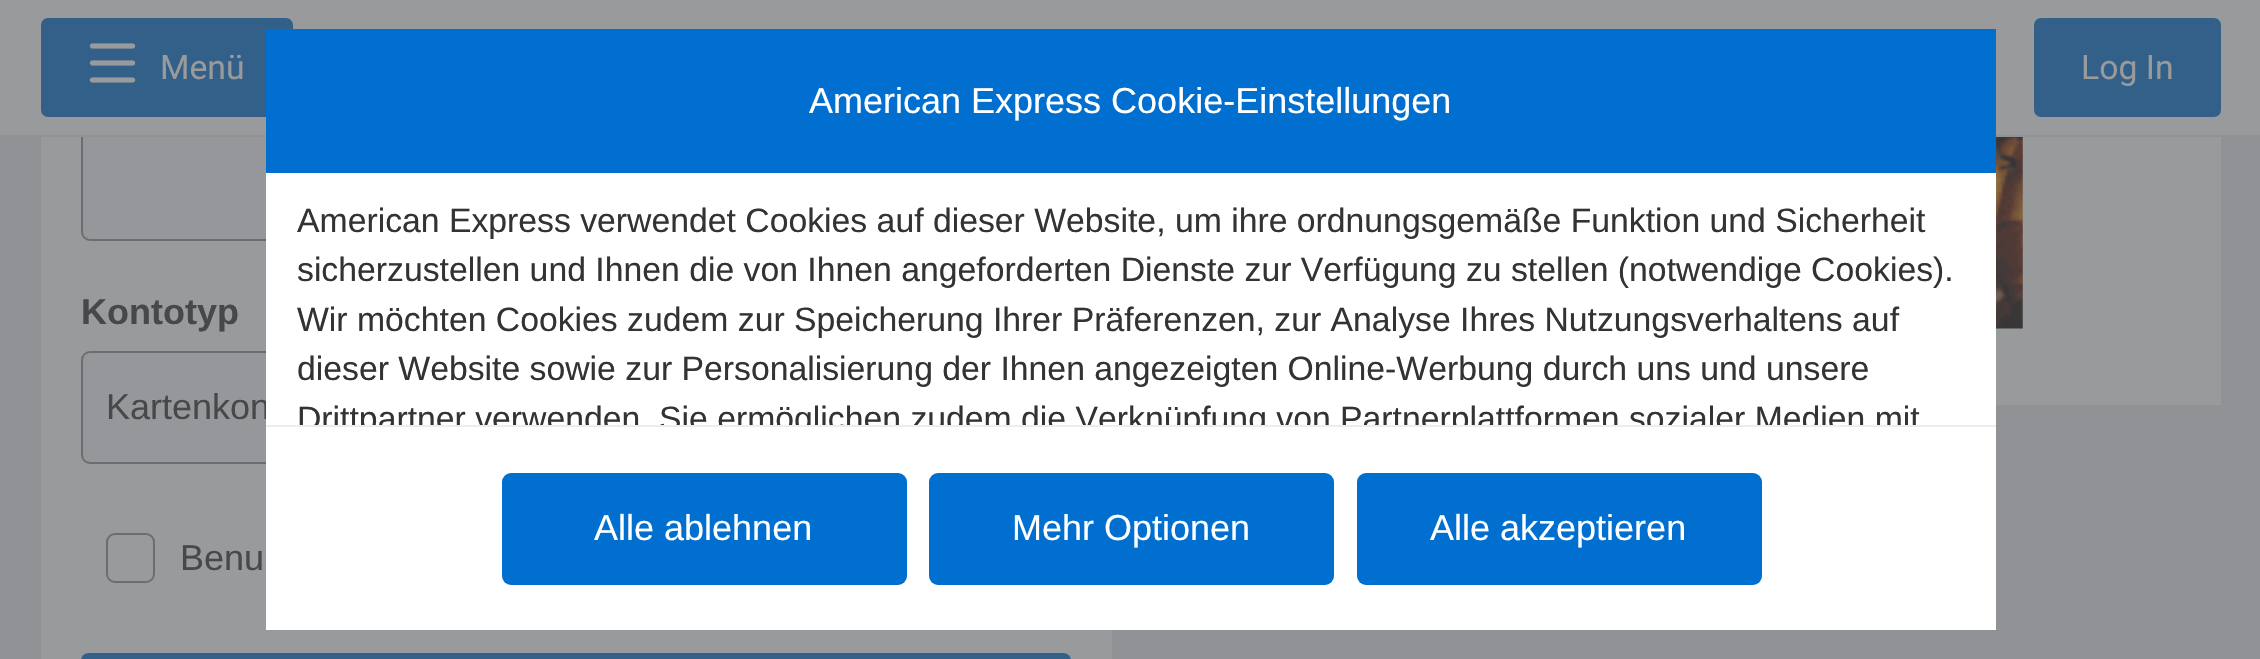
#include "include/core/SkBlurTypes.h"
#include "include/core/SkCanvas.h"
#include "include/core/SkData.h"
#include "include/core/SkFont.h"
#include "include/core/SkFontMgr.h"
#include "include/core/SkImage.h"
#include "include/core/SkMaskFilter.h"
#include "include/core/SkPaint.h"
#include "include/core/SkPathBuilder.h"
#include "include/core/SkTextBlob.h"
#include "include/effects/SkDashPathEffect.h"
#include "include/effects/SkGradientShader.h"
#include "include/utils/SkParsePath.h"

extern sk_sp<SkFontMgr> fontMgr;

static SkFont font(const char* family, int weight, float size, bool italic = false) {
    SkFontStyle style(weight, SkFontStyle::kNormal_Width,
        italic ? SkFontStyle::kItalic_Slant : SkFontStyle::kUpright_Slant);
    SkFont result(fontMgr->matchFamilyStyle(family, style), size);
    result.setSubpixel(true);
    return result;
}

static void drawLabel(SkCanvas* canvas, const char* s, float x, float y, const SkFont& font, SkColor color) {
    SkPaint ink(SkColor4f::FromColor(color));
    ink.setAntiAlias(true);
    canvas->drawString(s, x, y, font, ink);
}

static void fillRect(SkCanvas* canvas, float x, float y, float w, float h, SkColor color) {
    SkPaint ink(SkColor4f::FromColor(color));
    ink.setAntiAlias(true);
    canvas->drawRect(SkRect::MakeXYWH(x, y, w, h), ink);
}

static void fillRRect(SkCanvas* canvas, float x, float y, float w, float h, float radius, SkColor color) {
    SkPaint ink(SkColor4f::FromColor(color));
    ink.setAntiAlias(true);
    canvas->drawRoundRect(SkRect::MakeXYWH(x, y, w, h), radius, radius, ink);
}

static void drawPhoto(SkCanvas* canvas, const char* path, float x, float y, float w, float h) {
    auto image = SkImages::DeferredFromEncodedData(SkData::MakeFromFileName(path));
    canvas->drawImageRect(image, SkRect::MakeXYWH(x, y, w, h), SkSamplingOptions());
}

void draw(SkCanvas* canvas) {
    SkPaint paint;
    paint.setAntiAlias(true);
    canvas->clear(0xFF909295);
    fillRect(canvas, 41, 137, 1071, 522, 0xFF989A9C);
    paint.setColor(0xFF95979A);
    canvas->drawRoundRect(SkRect::MakeXYWH(82, 129, 988, 111), 8, 8, paint);
    paint.setStroke(true);
    paint.setStrokeWidth(2);
    paint.setColor(0xFF6B6D70);
    canvas->drawRoundRect(SkRect::MakeXYWH(82, 129, 988, 111), 8, 8, paint);
    fillRect(canvas, 0, 0, 2260, 135, 0xFF989A9C);
    fillRect(canvas, 81, 135, 990, 2, 0xFF909295);
    fillRRect(canvas, 41, 18, 252, 99, 7, 0xFF326089);
    drawPhoto(canvas, "assets/img1.png", 89, 43, 47, 40);
    SkFont font1 = font("Roboto", 400, 33.75f);
    drawLabel(canvas, "Menü", 160, 79, font1, 0xFF989A9C);
    fillRRect(canvas, 2034, 18, 187, 99, 7, 0xFF326089);
    drawLabel(canvas, "Log In", 2081, 79, font1, 0xFF989A9C);
    fillRect(canvas, 1996, 137, 225, 268, 0xFF989A9C);
    drawPhoto(canvas, "assets/img2.png", 1996, 137, 27, 192);
    SkFont font2 = font("Liberation Sans", 700, 36);
    drawLabel(canvas, "Kontotyp", 81, 324, font2, 0xFF46484A);
    paint.setStroke(false);
    paint.setColor(0xFF95979A);
    canvas->drawRoundRect(SkRect::MakeXYWH(82, 352, 988, 111), 8, 8, paint);
    paint.setStroke(true);
    paint.setColor(0xFF6B6D70);
    canvas->drawRoundRect(SkRect::MakeXYWH(82, 352, 988, 111), 8, 8, paint);
    SkFont font3 = font("Liberation Sans", 400, 36);
    drawLabel(canvas, "Kartenkon", 106, 419, font3, 0xFF46484A);
    canvas->drawRoundRect(SkRect::MakeXYWH(107, 534, 47, 48), 8, 8, paint);
    drawLabel(canvas, "Benu", 180, 570, font3, 0xFF46484A);
    fillRRect(canvas, 81, 653, 990, 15, 9, 0xFF326089);
    fillRect(canvas, 266, 173, 1730, 457, 0xFFFFFFFF);
    fillRect(canvas, 266, 29, 1730, 144, 0xFF006FCF);
    drawLabel(canvas, "American Express Cookie-Einstellungen", 809, 113, font3, 0xFFFFFFFF);
    SkFont font4 = font("Liberation Sans", 400, 33.75f);
    drawLabel(canvas, "American Express verwendet Cookies auf dieser Website, um ihre ordnungsgemäße Funktion und Sicherheit", 297, 232, font4, 0xFF333333);
    drawLabel(canvas, "sicherzustellen und Ihnen die von Ihnen angeforderten Dienste zur Verfügung zu stellen (notwendige Cookies).", 297, 281, font4, 0xFF333333);
    drawLabel(canvas, "Wir möchten Cookies zudem zur Speicherung Ihrer Präferenzen, zur Analyse Ihres Nutzungsverhaltens auf", 297, 331, font4, 0xFF333333);
    drawLabel(canvas, "dieser Website sowie zur Personalisierung der Ihnen angezeigten Online-Werbung durch uns und unsere", 297, 380, font4, 0xFF333333);
    canvas->save();
    canvas->clipRect(SkRect::MakeXYWH(266, 29, 1730, 396));
    drawLabel(canvas, "Drittpartner verwenden. Sie ermöglichen zudem die Verknüpfung von Partnerplattformen sozialer Medien mit", 297, 430, font4, 0xFF333333);
    canvas->restore();
    fillRect(canvas, 266, 425, 1730, 2, 0xFFECEDEE);
    fillRRect(canvas, 502, 473, 405, 112, 9, 0xFF006FCF);
    drawLabel(canvas, "Alle ablehnen", 594, 540, font3, 0xFFFFFFFF);
    fillRRect(canvas, 929, 473, 405, 112, 9, 0xFF006FCF);
    drawLabel(canvas, "Mehr Optionen", 1012, 540, font3, 0xFFFFFFFF);
    fillRRect(canvas, 1357, 473, 405, 112, 9, 0xFF006FCF);
    drawLabel(canvas, "Alle akzeptieren", 1430, 540, font3, 0xFFFFFFFF);
}
